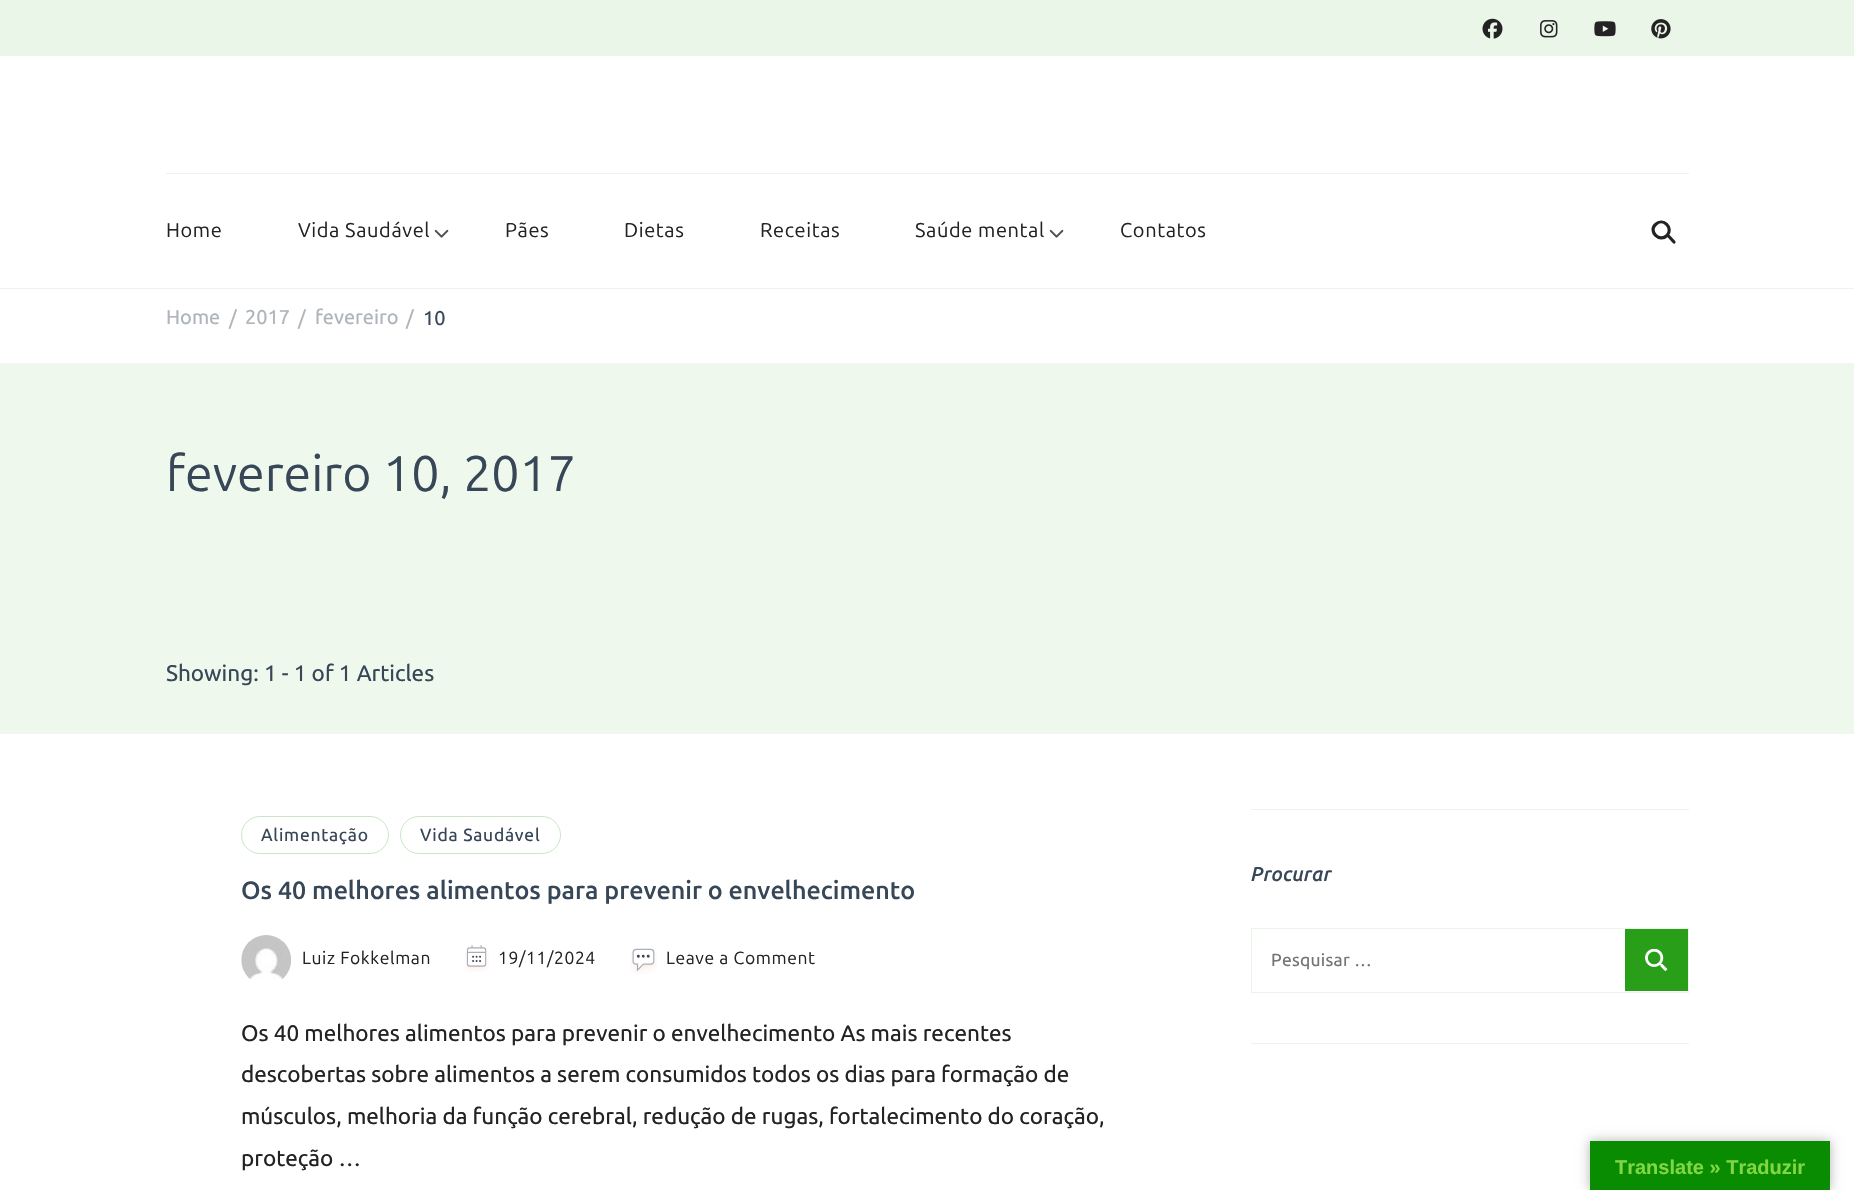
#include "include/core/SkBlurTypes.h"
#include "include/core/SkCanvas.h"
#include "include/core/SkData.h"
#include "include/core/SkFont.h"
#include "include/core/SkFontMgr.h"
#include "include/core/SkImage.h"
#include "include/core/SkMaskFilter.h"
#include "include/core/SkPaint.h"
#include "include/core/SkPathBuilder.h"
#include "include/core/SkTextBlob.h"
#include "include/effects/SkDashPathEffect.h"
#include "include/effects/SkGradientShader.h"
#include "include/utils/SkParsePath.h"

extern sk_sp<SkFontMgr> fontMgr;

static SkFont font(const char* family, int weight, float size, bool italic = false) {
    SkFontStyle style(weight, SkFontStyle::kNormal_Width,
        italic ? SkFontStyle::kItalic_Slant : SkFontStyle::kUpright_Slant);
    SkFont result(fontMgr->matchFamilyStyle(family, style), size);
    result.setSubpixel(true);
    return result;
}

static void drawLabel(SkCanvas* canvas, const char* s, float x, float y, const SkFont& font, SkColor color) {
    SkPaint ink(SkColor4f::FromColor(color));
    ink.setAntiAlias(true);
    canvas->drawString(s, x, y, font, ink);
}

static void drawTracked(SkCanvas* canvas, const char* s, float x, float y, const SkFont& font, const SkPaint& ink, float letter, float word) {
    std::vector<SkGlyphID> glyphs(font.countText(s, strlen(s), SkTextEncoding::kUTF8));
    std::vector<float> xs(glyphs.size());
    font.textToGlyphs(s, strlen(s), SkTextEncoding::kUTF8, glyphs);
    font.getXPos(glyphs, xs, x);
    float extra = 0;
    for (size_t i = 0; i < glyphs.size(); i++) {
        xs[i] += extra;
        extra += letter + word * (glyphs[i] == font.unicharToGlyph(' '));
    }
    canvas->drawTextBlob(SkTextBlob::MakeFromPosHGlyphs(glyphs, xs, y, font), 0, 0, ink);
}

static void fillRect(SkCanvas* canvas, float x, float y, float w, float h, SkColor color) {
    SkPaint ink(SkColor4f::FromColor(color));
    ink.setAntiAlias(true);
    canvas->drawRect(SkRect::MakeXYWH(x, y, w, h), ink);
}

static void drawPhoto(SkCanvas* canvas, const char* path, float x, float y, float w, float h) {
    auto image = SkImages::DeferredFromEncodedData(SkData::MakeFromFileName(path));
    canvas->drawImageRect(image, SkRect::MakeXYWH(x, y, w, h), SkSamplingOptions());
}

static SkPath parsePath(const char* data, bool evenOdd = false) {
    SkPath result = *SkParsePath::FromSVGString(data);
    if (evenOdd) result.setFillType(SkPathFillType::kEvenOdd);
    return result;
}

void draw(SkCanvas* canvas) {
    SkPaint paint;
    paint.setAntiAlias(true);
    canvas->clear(0xFFFFFFFF);
    fillRect(canvas, 0, 288, 1854, 1, 0xFFEAF5E8);
    fillRect(canvas, 0, 0, 1854, 56, 0xFFEAF6E8);
    drawPhoto(canvas, "assets/img1.png", 1482, 18, 21, 21);
    drawPhoto(canvas, "assets/img2.png", 1540, 20, 18, 18);
    drawPhoto(canvas, "assets/img3.png", 1594, 21, 22, 16);
    drawPhoto(canvas, "assets/img4.png", 1651, 19, 20, 20);
    fillRect(canvas, 166, 173, 1523, 1, 0xFFEAF5E8);
    SkFont font1 = font("Ubuntu Sans", 400, 20);
    paint.setColor(0xFF232323);
    drawTracked(canvas, "Home", 166, 237, font1, paint, 0.6f, 0);
    drawTracked(canvas, "Vida Saudável", 298, 237, font1, paint, 0.6f, 0);
    drawPhoto(canvas, "assets/img5.png", 434, 229, 15, 9);
    drawTracked(canvas, "Pães", 505, 237, font1, paint, 0.6f, 0);
    drawTracked(canvas, "Dietas", 624, 237, font1, paint, 0.6f, 0);
    drawTracked(canvas, "Receitas", 760, 237, font1, paint, 0.6f, 0);
    drawTracked(canvas, "Saúde mental", 915, 237, font1, paint, 0.6f, 0);
    drawPhoto(canvas, "assets/img5.png", 1049, 229, 15, 9);
    drawTracked(canvas, "Contatos", 1120, 237, font1, paint, 0.6f, 0);
    paint.setStroke(true);
    paint.setStrokeWidth(3.2f);
    canvas->drawPath(parsePath("M1655.5 224.5C1663 217 1674 228 1667 235.5C1659.5 243 1648 231.5 1655.5 224.5Z"), paint);
    paint.setStrokeCap(SkPaint::kRound_Cap);
    canvas->drawPath(parsePath("M1668 235.5L1674 242"), paint);
    SkFont font2 = font("Ubuntu", 400, 20);
    drawLabel(canvas, "Home", 166, 324, font2, 0xFFAFB5BC);
    drawLabel(canvas, "/", 229, 325, font2, 0xFFAFB5BC);
    drawLabel(canvas, "2017", 245, 324, font2, 0xFFAFB5BC);
    drawLabel(canvas, "/", 298, 325, font2, 0xFFAFB5BC);
    drawLabel(canvas, "fevereiro", 315, 324, font2, 0xFFAFB5BC);
    drawLabel(canvas, "/", 406, 325, font2, 0xFFAFB5BC);
    drawLabel(canvas, "10", 423, 325, font2, 0xFF374757);
    fillRect(canvas, 0, 363, 1854, 371, 0xFFEFF8ED);
    SkFont font3 = font("Ubuntu Sans", 400, 50);
    drawLabel(canvas, "fevereiro 10, 2017", 166, 491, font3, 0xFF374757);
    SkFont font4 = font("Ubuntu", 400, 22.5f);
    drawLabel(canvas, "Showing: 1 - 1 of 1 Articles", 166, 681, font4, 0xFF374757);
    paint.setStrokeWidth(1);
    paint.setStrokeCap(SkPaint::kButt_Cap);
    paint.setColor(0xFFC9E7C6);
    canvas->drawRoundRect(SkRect::MakeXYWH(241.5f, 816.5f, 147, 37), 18.5f, 18.5f, paint);
    SkFont font5 = font("Ubuntu", 400, 17.5f);
    paint.setStroke(false);
    paint.setColor(0xFF374757);
    drawTracked(canvas, "Alimentação", 261, 841, font5, paint, 0.75f, 0);
    paint.setStroke(true);
    paint.setColor(0xFFC9E7C6);
    canvas->drawRoundRect(SkRect::MakeXYWH(400.5f, 816.5f, 160, 37), 18.5f, 18.5f, paint);
    paint.setStroke(false);
    paint.setColor(0xFF374757);
    drawTracked(canvas, "Vida Saudável", 420, 841, font5, paint, 0.75f, 0);
    SkFont font6 = font("Ubuntu Sans", 600, 25);
    drawLabel(canvas, "Os 40 melhores alimentos para prevenir o envelhecimento", 241, 899, font6, 0xFF374757);
    drawPhoto(canvas, "assets/img6.png", 241, 935, 50, 45);
    SkFont font7 = font("Ubuntu Sans", 400, 17.5f);
    paint.setColor(0xFF232323);
    drawTracked(canvas, "Luiz Fokkelman", 302, 964, font7, paint, 0.6f, 0);
    drawPhoto(canvas, "assets/img7.png", 465, 945, 24, 27);
    drawTracked(canvas, "19/11/2024", 498, 964, font7, paint, 0.6f, 0);
    drawPhoto(canvas, "assets/img8.png", 630, 948, 27, 26);
    drawTracked(canvas, "Leave a Comment", 666, 964, font7, paint, 0.6f, 0);
    drawLabel(canvas, "Os 40 melhores alimentos para prevenir o envelhecimento As mais recentes", 241, 1041, font4, 0xFF232323);
    drawLabel(canvas, "descobertas sobre alimentos a serem consumidos todos os dias para formação de", 241, 1082, font4, 0xFF232323);
    drawLabel(canvas, "músculos, melhoria da função cerebral, redução de rugas, fortalecimento do coração,", 241, 1124, font4, 0xFF232323);
    drawLabel(canvas, "proteção …", 241, 1166, font4, 0xFF232323);
    fillRect(canvas, 1251, 809, 438, 1, 0xFFEAF5E8);
    SkFont font8 = font("Ubuntu Sans", 600, 20, true);
    drawLabel(canvas, "Procurar", 1251, 881, font8, 0xFF374757);
    paint.setStroke(true);
    paint.setColor(0xFFEAF5E8);
    canvas->drawRect(SkRect::MakeXYWH(1251.5f, 928.5f, 437, 64), paint);
    paint.setStroke(false);
    paint.setColor(0xFF757575);
    drawTracked(canvas, "Pesquisar …", 1271, 966, font5, paint, 0.25f, 0);
    fillRect(canvas, 1625, 929, 63, 62, 0xFF289E19);
    drawPhoto(canvas, "assets/img9.png", 1645, 949, 23, 22);
    fillRect(canvas, 1251, 1043, 438, 1, 0xFFEAF5E8);
    paint.setColor(0x4D000000);
    paint.setMaskFilter(SkMaskFilter::MakeBlur(kNormal_SkBlurStyle, 5.5f));
    canvas->drawRect(SkRect::MakeXYWH(1590, 1141, 240, 49), paint);
    paint.setMaskFilter(nullptr);
    fillRect(canvas, 1590, 1141, 240, 49, 0xFF098C02);
    SkFont font9 = font("Liberation Sans", 700, 20);
    drawLabel(canvas, "Translate » Traduzir", 1615, 1174, font9, 0xFF81D742);
}
